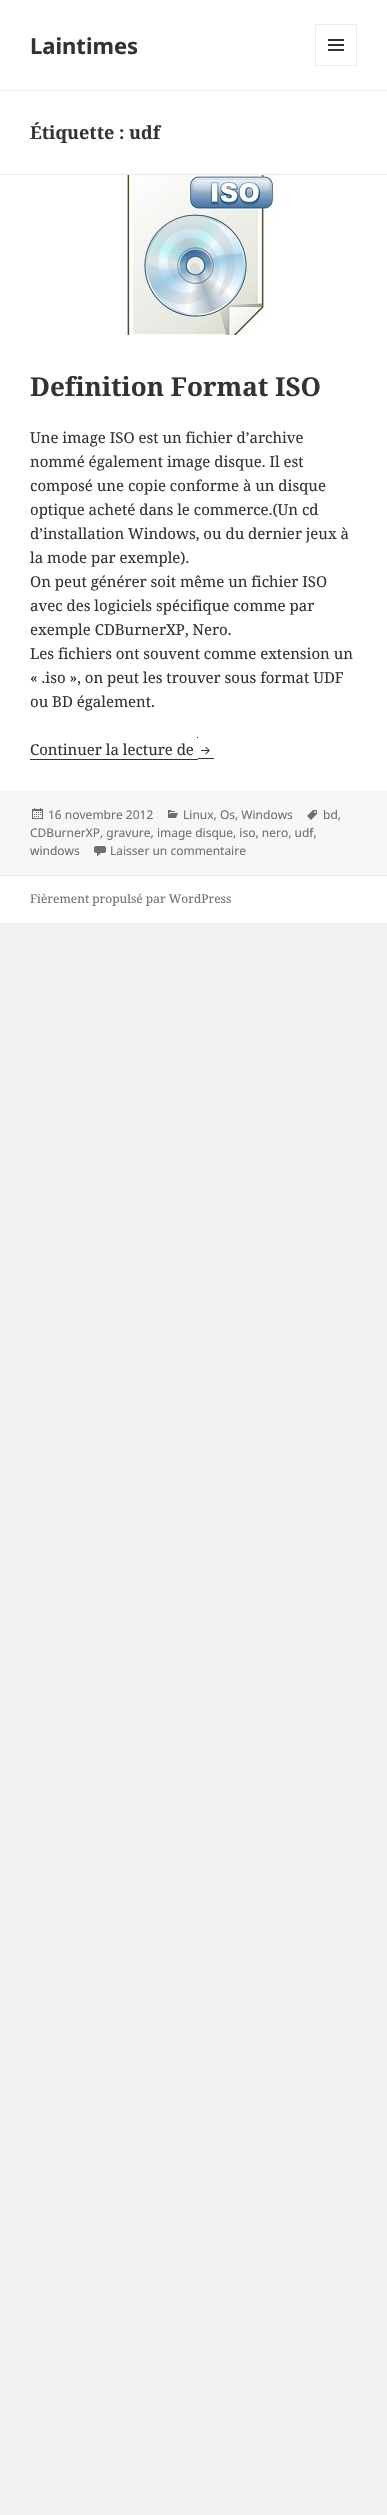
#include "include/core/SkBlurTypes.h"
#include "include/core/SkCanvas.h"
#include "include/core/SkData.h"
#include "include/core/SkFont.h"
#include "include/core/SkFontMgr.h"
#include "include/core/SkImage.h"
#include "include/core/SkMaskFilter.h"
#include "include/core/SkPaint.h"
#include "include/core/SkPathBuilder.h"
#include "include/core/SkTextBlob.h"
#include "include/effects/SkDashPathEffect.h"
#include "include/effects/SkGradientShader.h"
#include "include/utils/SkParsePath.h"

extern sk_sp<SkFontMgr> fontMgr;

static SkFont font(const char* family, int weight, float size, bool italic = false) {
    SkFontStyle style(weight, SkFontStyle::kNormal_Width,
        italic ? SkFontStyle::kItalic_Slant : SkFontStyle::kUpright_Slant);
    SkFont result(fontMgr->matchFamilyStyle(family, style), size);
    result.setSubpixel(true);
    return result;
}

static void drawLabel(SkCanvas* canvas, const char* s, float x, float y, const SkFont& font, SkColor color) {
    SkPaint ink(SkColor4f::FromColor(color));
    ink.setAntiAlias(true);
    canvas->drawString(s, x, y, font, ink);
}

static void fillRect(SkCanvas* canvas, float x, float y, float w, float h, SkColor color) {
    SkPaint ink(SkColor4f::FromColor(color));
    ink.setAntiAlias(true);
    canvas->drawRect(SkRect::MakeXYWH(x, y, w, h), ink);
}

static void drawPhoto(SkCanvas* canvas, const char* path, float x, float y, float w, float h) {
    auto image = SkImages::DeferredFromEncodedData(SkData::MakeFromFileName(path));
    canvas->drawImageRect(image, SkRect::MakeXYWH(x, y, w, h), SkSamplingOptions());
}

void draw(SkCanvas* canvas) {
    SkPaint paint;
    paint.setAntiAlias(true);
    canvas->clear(0xFFF1F1F1);
    fillRect(canvas, 0, 0, 387, 90, 0xFFFFFFFF);
    fillRect(canvas, 0, 90, 387, 1, 0xFFEBEBEB);
    SkFont font1 = font("Noto Sans", 700, 22);
    drawLabel(canvas, "Laintimes", 30, 54, font1, 0xFF333333);
    paint.setStroke(true);
    paint.setStrokeWidth(1);
    paint.setColor(0xFFEBEBEB);
    canvas->drawRect(SkRect::MakeXYWH(315.5f, 24.5f, 41, 41), paint);
    drawPhoto(canvas, "assets/img1.png", 328, 39, 16, 12);
    fillRect(canvas, 0, 91, 387, 83, 0xFFFFFFFF);
    fillRect(canvas, 0, 174, 387, 1, 0xFFEBEBEB);
    SkFont font2 = font("Noto Serif", 700, 18);
    drawLabel(canvas, "Étiquette : udf", 30, 139, font2, 0xFF333333);
    fillRect(canvas, 0, 175, 387, 616, 0xFFFFFFFF);
    drawPhoto(canvas, "assets/img2.png", 125, 175, 155, 160);
    SkFont font3 = font("Noto Serif", 700, 26);
    drawLabel(canvas, "Definition Format ISO", 30, 396, font3, 0xFF333333);
    SkFont font4 = font("Noto Serif", 400, 15);
    drawLabel(canvas, "Une image ISO est un fichier d’archive", 30, 443, font4, 0xFF333333);
    drawLabel(canvas, "nommé également image disque. Il est", 30, 467, font4, 0xFF333333);
    drawLabel(canvas, "composé une copie conforme à un disque", 30, 491, font4, 0xFF333333);
    drawLabel(canvas, "optique acheté dans le commerce.(Un cd", 30, 515, font4, 0xFF333333);
    drawLabel(canvas, "d’installation Windows, ou du dernier jeux à", 30, 539, font4, 0xFF333333);
    drawLabel(canvas, "la mode par exemple).", 30, 563, font4, 0xFF333333);
    drawLabel(canvas, "On peut générer soit même un fichier ISO", 30, 587, font4, 0xFF333333);
    drawLabel(canvas, "avec des logiciels spécifique comme par", 30, 611, font4, 0xFF333333);
    drawLabel(canvas, "exemple CDBurnerXP, Nero.", 30, 635, font4, 0xFF333333);
    drawLabel(canvas, "Les fichiers ont souvent comme extension un", 30, 659, font4, 0xFF333333);
    drawLabel(canvas, "« .iso », on peut les trouver sous format UDF", 30, 683, font4, 0xFF333333);
    drawLabel(canvas, "ou BD également.", 30, 707, font4, 0xFF333333);
    fillRect(canvas, 30, 759, 168, 1, 0xFF333333);
    fillRect(canvas, 197, 737, 1, 1, 0xFF333333);
    fillRect(canvas, 198, 758, 16, 1, 0xFF333333);
    drawLabel(canvas, "Continuer la lecture de", 30, 755, font4, 0xFF333333);
    drawPhoto(canvas, "assets/img3.png", 201, 746, 9, 9);
    fillRect(canvas, 0, 791, 387, 84, 0xFFF7F7F7);
    drawPhoto(canvas, "assets/img4.png", 307, 810, 10, 10);
    SkFont font5 = font("Noto Sans", 400, 12);
    drawLabel(canvas, "bd,", 323, 819, font5, 0xFF707070);
    drawLabel(canvas, "CDBurnerXP, gravure, image disque, iso, nero, udf,", 30, 837, font5, 0xFF707070);
    drawLabel(canvas, "windows", 30, 855, font5, 0xFF707070);
    drawPhoto(canvas, "assets/img5.png", 32, 808, 11, 11);
    drawLabel(canvas, "16 novembre 2012", 48, 819, font5, 0xFF707070);
    drawPhoto(canvas, "assets/img6.png", 168, 810, 10, 8);
    drawLabel(canvas, "Linux, Os, Windows", 183, 819, font5, 0xFF707070);
    drawPhoto(canvas, "assets/img7.png", 94, 846, 12, 11);
    drawLabel(canvas, "Laisser un commentaire", 110, 855, font5, 0xFF707070);
    fillRect(canvas, 0, 876, 387, 47, 0xFFFFFFFF);
    fillRect(canvas, 0, 875, 387, 1, 0xFFEBEBEB);
    SkFont font6 = font("Noto Serif", 400, 12);
    drawLabel(canvas, "Fièrement propulsé par WordPress", 30, 903, font6, 0xFF707070);
}
